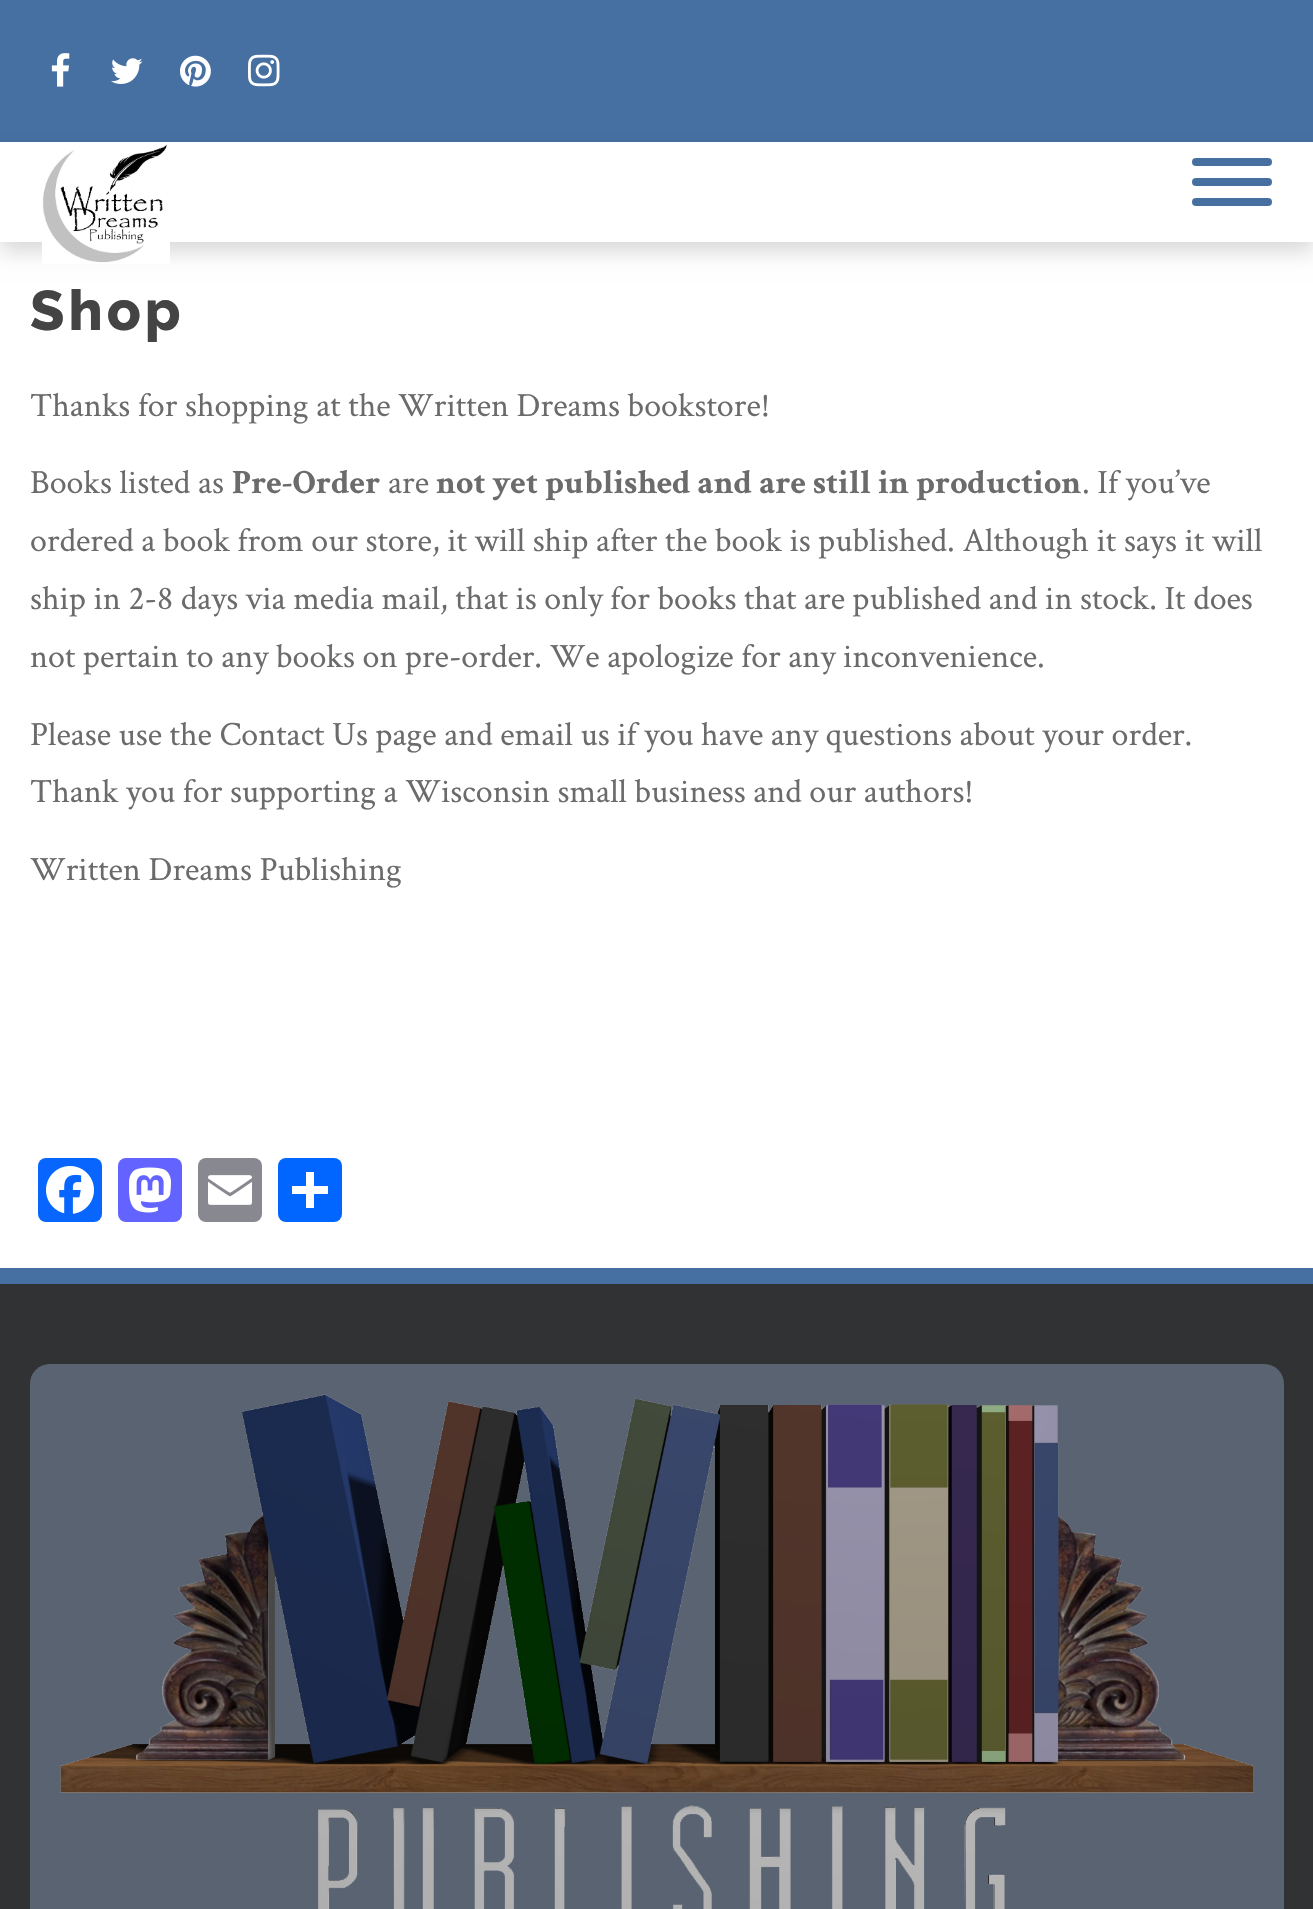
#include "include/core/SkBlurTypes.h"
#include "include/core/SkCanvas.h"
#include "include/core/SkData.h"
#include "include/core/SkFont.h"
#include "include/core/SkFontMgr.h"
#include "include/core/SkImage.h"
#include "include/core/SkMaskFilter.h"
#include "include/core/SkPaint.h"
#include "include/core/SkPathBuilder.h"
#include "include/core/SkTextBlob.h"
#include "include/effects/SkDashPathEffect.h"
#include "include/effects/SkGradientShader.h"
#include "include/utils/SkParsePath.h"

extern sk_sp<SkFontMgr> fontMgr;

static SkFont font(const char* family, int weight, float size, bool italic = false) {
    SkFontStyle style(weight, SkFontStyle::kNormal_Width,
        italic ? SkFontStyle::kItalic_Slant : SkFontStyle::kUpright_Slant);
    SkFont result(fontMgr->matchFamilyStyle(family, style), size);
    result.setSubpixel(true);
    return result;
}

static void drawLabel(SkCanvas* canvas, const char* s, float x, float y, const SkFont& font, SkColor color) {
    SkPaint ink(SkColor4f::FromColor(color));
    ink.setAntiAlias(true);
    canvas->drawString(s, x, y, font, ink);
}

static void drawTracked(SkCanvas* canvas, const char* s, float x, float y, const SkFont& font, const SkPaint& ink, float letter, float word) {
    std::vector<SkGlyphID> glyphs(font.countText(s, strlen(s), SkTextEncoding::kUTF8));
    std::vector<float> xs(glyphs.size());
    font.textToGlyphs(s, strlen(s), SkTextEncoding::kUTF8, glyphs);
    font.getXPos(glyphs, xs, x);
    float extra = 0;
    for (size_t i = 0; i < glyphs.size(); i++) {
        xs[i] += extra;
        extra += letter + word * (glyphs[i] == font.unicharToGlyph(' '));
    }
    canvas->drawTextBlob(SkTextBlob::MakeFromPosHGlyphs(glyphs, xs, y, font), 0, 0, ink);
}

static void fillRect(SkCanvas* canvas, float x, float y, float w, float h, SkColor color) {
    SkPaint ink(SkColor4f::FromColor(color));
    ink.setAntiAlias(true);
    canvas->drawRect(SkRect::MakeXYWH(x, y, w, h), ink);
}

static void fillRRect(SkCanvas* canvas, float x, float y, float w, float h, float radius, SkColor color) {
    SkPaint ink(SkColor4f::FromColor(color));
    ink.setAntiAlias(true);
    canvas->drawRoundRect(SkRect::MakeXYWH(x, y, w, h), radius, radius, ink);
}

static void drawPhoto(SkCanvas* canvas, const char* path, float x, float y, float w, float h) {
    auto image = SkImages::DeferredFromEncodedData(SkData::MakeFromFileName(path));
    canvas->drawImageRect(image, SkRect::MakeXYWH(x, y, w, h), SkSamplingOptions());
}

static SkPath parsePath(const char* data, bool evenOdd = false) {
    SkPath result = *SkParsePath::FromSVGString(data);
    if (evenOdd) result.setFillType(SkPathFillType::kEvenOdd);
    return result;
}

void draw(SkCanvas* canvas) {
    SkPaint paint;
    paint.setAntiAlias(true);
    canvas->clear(0xFFFFFFFF);
    fillRect(canvas, 0, 0, 1313, 142, 0xFF4670A1);
    drawPhoto(canvas, "assets/img1.png", 51, 53, 19, 34);
    drawPhoto(canvas, "assets/img2.png", 111, 58, 32, 26);
    drawPhoto(canvas, "assets/img3.png", 180, 55, 31, 32);
    drawPhoto(canvas, "assets/img4.png", 248, 54, 32, 33);
    canvas->save();
    canvas->clipPath(parsePath("M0 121H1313V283H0ZM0 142H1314V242H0Z", true), true);
    paint.setColor(0x26000000);
    paint.setMaskFilter(SkMaskFilter::MakeBlur(kNormal_SkBlurStyle, 10));
    canvas->drawRect(SkRect::MakeXYWH(0, 152, 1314, 100), paint);
    paint.setMaskFilter(nullptr);
    canvas->restore();
    drawPhoto(canvas, "assets/img5.png", 42, 144, 128, 120);
    fillRRect(canvas, 1192, 158, 80, 8, 4, 0xFF4670A1);
    fillRRect(canvas, 1192, 178, 80, 8, 4, 0xFF4670A1);
    fillRRect(canvas, 1192, 198, 80, 8, 4, 0xFF4670A1);
    SkFont font1 = font("Raleway", 800, 56);
    paint.setColor(0xFF444444);
    drawTracked(canvas, "Shop", 30, 330, font1, paint, 4, 0);
    SkFont font2 = font("Crimson Text", 400, 34);
    drawLabel(canvas, "Thanks for shopping at the Written Dreams bookstore!", 30, 416, font2, 0xFF6B6B6B);
    drawLabel(canvas, "Books listed as", 30, 493, font2, 0xFF6B6B6B);
    SkFont font3 = font("Crimson Text", 700, 34);
    drawLabel(canvas, "Pre-Order", 232, 493, font3, 0xFF6B6B6B);
    drawLabel(canvas, "are", 388, 493, font2, 0xFF6B6B6B);
    drawLabel(canvas, "not yet published and are still in production", 436, 493, font3, 0xFF6B6B6B);
    drawLabel(canvas, ". If you’ve", 1082, 493, font2, 0xFF6B6B6B);
    drawLabel(canvas, "ordered a book from our store, it will ship after the book is published. Although it says it will", 30, 551, font2, 0xFF6B6B6B);
    drawLabel(canvas, "ship in 2-8 days via media mail, that is only for books that are published and in stock. It does", 30, 609, font2, 0xFF6B6B6B);
    drawLabel(canvas, "not pertain to any books on pre-order. We apologize for any inconvenience.", 30, 667, font2, 0xFF6B6B6B);
    drawLabel(canvas, "Please use the Contact Us page and email us if you have any questions about your order.", 30, 745, font2, 0xFF6B6B6B);
    drawLabel(canvas, "Thank you for supporting a Wisconsin small business and our authors!", 30, 802, font2, 0xFF6B6B6B);
    drawLabel(canvas, "Written Dreams Publishing", 30, 880, font2, 0xFF6B6B6B);
    fillRRect(canvas, 38, 1158, 64, 64, 8, 0xFF0866FF);
    drawPhoto(canvas, "assets/img6.png", 46, 1166, 48, 48);
    fillRRect(canvas, 118, 1158, 64, 64, 8, 0xFF6364FF);
    drawPhoto(canvas, "assets/img7.png", 129, 1167, 42, 46);
    fillRRect(canvas, 198, 1158, 64, 64, 8, 0xFF888990);
    drawPhoto(canvas, "assets/img8.png", 208, 1175, 44, 30);
    fillRRect(canvas, 278, 1158, 64, 64, 8, 0xFF0166FF);
    fillRect(canvas, 306, 1172, 8, 36, 0xFFFFFFFF);
    fillRect(canvas, 292, 1186, 36, 8, 0xFFFFFFFF);
    fillRect(canvas, 0, 1284, 1313, 625, 0xFF313233);
    fillRect(canvas, 0, 1268, 1313, 16, 0xFF4570A1);
    fillRRect(canvas, 30, 1364, 1254, 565, 20, 0xFF5A6371);
    drawPhoto(canvas, "assets/img9.png", 60, 1394, 1194, 515);
}
